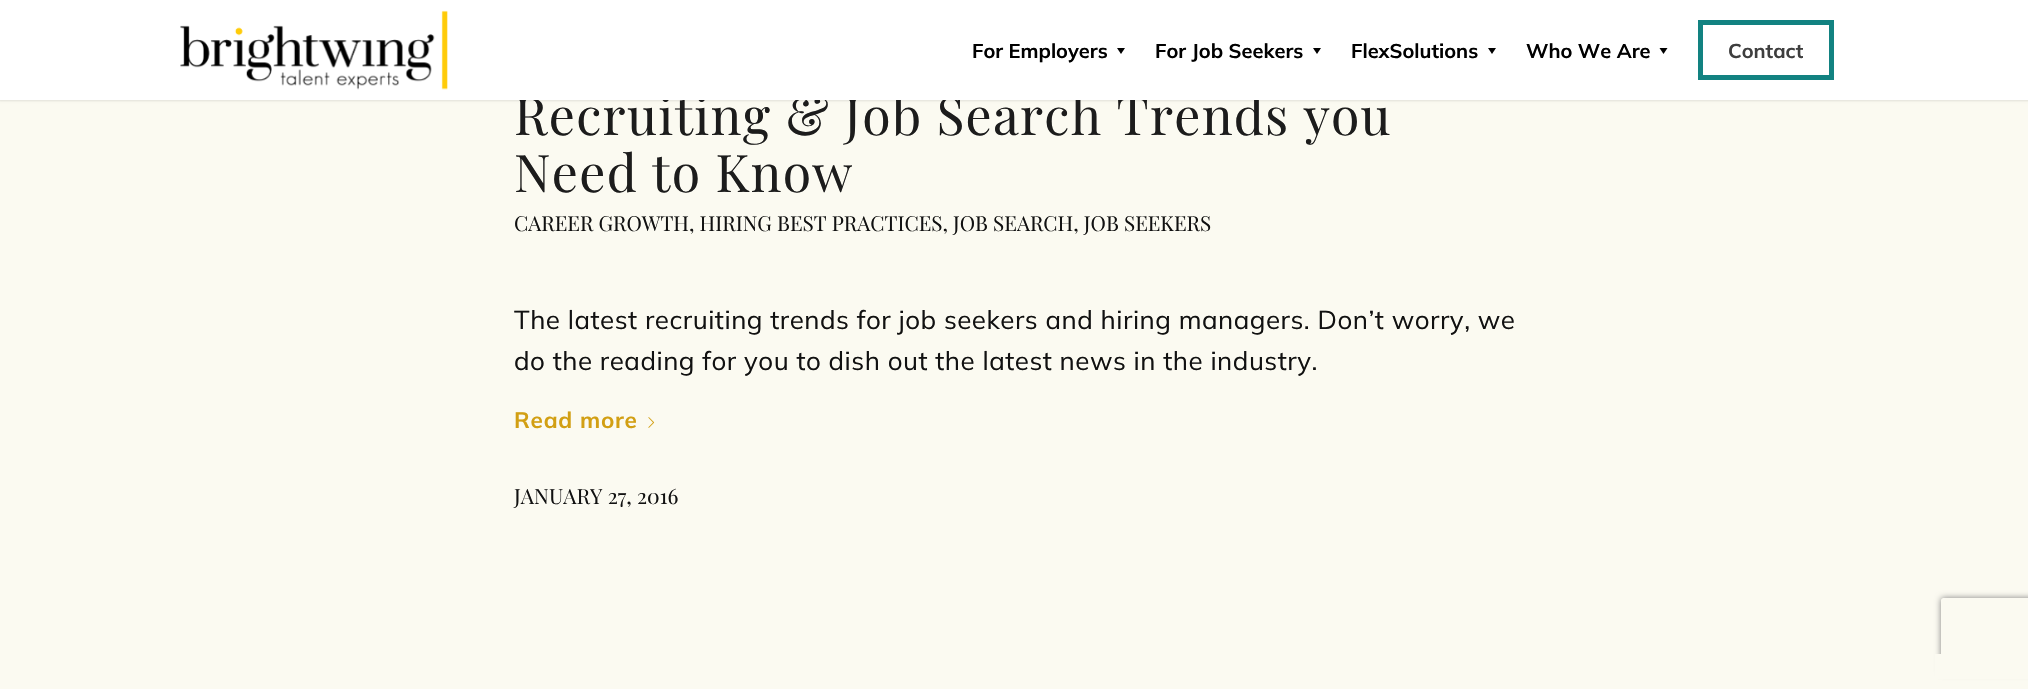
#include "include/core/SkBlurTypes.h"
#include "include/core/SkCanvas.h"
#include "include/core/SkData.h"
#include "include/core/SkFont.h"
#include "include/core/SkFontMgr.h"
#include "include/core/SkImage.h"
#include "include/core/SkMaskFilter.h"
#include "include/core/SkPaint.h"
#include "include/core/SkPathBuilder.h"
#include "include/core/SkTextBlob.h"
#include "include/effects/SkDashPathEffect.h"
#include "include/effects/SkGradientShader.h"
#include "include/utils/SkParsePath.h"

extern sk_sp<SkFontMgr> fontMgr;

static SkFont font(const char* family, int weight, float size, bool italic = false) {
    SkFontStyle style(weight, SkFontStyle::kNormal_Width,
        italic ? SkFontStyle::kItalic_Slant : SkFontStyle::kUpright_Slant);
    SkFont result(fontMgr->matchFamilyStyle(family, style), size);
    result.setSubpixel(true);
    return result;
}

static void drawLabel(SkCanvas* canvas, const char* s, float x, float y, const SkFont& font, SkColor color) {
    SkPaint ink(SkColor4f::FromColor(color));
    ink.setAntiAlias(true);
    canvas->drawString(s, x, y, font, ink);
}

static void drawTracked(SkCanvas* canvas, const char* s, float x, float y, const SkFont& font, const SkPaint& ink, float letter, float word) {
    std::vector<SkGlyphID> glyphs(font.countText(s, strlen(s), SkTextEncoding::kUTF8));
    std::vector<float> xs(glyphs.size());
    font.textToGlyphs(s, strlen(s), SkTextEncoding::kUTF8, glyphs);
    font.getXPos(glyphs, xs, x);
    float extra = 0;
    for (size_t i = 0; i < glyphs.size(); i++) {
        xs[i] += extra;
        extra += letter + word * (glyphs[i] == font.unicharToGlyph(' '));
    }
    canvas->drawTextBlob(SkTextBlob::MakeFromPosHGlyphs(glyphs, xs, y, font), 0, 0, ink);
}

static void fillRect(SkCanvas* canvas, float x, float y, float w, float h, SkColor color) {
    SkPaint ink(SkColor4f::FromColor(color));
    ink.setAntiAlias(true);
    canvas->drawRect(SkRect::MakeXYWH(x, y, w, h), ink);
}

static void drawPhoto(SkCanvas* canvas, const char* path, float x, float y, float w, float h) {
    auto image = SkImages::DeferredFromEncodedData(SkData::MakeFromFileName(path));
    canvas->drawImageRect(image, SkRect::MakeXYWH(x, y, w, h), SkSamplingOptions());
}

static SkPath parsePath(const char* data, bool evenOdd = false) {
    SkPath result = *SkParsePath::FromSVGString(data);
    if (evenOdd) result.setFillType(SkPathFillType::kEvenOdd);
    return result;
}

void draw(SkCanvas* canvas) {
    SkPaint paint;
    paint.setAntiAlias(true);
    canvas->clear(0xFFFBFAF1);
    paint.setColor(0x1A000000);
    paint.setMaskFilter(SkMaskFilter::MakeBlur(kNormal_SkBlurStyle, 1));
    canvas->drawRect(SkRect::MakeXYWH(-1, -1, 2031, 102), paint);
    paint.setMaskFilter(nullptr);
    SkFont font1 = font("Playfair Display", 400, 51.75f);
    paint.setColor(0xFF1C1C1C);
    drawTracked(canvas, "Recruiting & Job Search Trends you", 514, 135, font1, paint, 1.25f, 0);
    fillRect(canvas, 0, 0, 2028, 100, 0xFFFFFFFF);
    drawPhoto(canvas, "assets/img1.png", 180, 10, 268, 80);
    SkFont font2 = font("Mulish", 700, 20);
    drawLabel(canvas, "For Employers", 972, 58, font2, 0xFF000000);
    paint.setColor(0xFF000000);
    canvas->drawPath(parsePath("M1125 48L1121 54L1117 48Z"), paint);
    drawLabel(canvas, "For Job Seekers", 1155, 58, font2, 0xFF000000);
    canvas->drawPath(parsePath("M1321 48L1317 54L1313 48Z"), paint);
    drawLabel(canvas, "FlexSolutions", 1351, 58, font2, 0xFF000000);
    canvas->drawPath(parsePath("M1496 48L1492 54L1488 48Z"), paint);
    drawLabel(canvas, "Who We Are", 1526, 58, font2, 0xFF000000);
    canvas->drawPath(parsePath("M1667.5 48L1663.5 54L1659.5 48Z"), paint);
    paint.setStroke(true);
    paint.setStrokeWidth(5);
    paint.setColor(0xFF128281);
    canvas->drawRect(SkRect::MakeXYWH(1700.5f, 22.5f, 131, 55), paint);
    drawLabel(canvas, "Contact", 1728, 58, font2, 0xFF3E3E3E);
    paint.setStroke(false);
    paint.setColor(0xFF1C1C1C);
    drawTracked(canvas, "Need to Know", 514, 192, font1, paint, 1.25f, 0);
    SkFont font3 = font("Playfair Display", 400, 20.7f);
    drawLabel(canvas, "CAREER GROWTH, HIRING BEST PRACTICES, JOB SEARCH, JOB SEEKERS", 514, 231, font3, 0xFF111111);
    SkFont font4 = font("Mulish", 400, 25.9f);
    paint.setColor(0xFF111111);
    drawTracked(canvas, "The latest recruiting trends for job seekers and hiring managers. Don’t worry, we", 514, 329, font4, paint, 0.52f, 0);
    drawTracked(canvas, "do the reading for you to dish out the latest news in the industry.", 514, 370, font4, paint, 0.52f, 0);
    SkFont font5 = font("Mulish", 700, 22.5f);
    paint.setColor(0xFFD29F13);
    drawTracked(canvas, "Read more", 514, 428, font5, paint, 0.75f, 0);
    drawPhoto(canvas, "assets/img2.png", 648, 417, 7, 11);
    SkFont font6 = font("Playfair Display", 400, 21);
    drawLabel(canvas, "JANUARY 27, 2016", 514, 504, font6, 0xFF111111);
    canvas->save();
    canvas->clipPath(parsePath("M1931 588H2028V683H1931ZM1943.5 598H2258.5C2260 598 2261 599 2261 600.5V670.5C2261 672 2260 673 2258.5 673H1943.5C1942 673 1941 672 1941 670.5V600.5C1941 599 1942 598 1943.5 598Z", true), true);
    paint.setColor(0xFF808080);
    paint.setMaskFilter(SkMaskFilter::MakeBlur(kNormal_SkBlurStyle, 3));
    canvas->drawRoundRect(SkRect::MakeXYWH(1941, 598, 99, 75), 2.5f, 2.5f, paint);
    paint.setMaskFilter(nullptr);
    canvas->restore();
    fillRect(canvas, 1935, 654, 93, 25, 0xFFFBFAF1);
}
